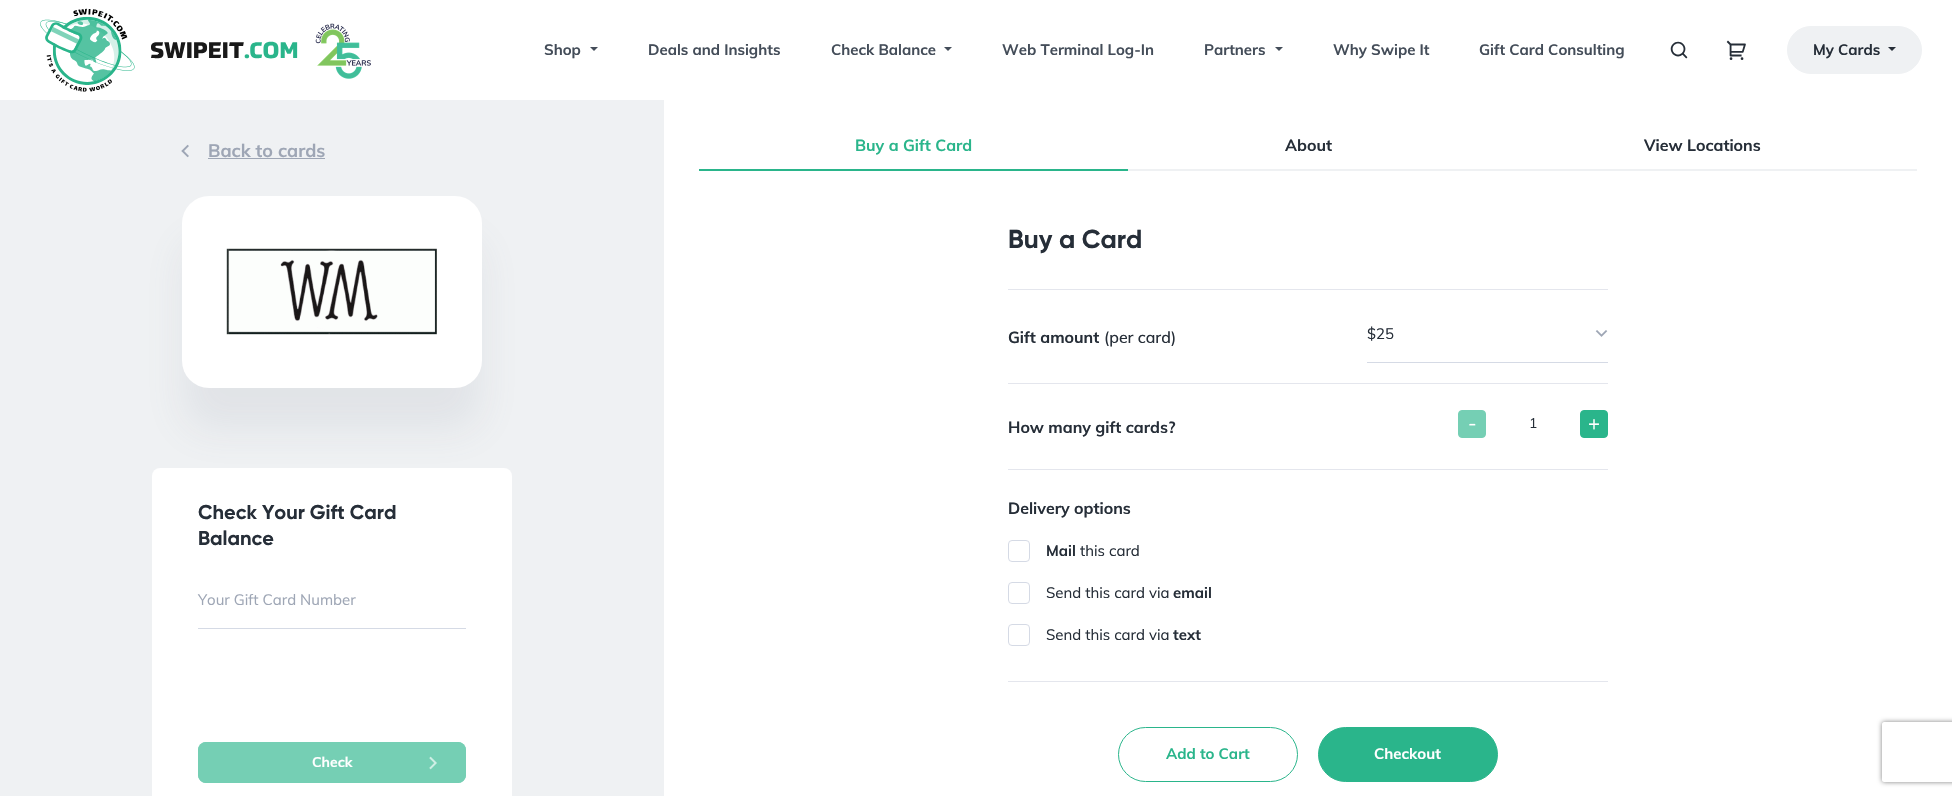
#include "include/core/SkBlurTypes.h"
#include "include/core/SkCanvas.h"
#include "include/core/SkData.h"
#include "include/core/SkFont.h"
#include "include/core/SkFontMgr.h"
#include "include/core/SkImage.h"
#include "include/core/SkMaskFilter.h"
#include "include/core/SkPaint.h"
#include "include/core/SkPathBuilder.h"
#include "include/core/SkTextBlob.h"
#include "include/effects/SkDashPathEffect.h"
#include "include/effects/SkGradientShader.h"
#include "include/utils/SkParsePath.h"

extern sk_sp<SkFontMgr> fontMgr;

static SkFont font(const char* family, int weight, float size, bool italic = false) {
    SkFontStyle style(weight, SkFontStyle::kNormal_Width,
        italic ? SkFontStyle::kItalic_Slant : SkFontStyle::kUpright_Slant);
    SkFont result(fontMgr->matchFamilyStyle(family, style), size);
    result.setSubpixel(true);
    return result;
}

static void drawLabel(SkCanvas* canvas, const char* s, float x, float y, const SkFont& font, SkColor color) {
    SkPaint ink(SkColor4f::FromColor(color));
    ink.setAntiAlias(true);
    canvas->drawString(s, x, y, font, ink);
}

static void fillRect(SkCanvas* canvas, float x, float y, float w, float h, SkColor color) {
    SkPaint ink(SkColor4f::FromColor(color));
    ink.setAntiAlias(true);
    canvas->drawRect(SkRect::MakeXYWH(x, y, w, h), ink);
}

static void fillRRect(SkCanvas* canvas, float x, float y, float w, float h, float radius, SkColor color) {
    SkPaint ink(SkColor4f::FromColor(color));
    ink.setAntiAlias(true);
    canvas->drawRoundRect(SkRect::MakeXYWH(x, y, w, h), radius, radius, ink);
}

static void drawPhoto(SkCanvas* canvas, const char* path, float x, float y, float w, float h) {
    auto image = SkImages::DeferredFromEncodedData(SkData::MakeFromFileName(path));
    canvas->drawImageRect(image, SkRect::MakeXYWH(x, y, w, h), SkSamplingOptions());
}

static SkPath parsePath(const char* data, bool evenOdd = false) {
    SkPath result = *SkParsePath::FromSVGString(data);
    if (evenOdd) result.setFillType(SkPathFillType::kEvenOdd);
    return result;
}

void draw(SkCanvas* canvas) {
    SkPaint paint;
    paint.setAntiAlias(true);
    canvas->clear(0xFFEFF1F3);
    fillRect(canvas, 0, 0, 1952, 100, 0xFFFFFFFF);
    drawPhoto(canvas, "assets/img1.png", 40, 8, 95, 84);
    drawPhoto(canvas, "assets/img2.png", 151, 41, 147, 18);
    drawPhoto(canvas, "assets/img3.png", 315, 23, 56, 56);
    SkFont font1 = font("Mulish", 700, 15);
    drawLabel(canvas, "Shop", 544, 55, font1, 0xFF444D59);
    paint.setColor(0xFF444D59);
    canvas->drawPath(parsePath("M590 47H598L594 51Z"), paint);
    drawLabel(canvas, "Deals and Insights", 648, 55, font1, 0xFF444D59);
    drawLabel(canvas, "Check Balance", 831, 55, font1, 0xFF444D59);
    canvas->drawPath(parsePath("M944 47H952L948 51Z"), paint);
    drawLabel(canvas, "Web Terminal Log-In", 1002, 55, font1, 0xFF444D59);
    drawLabel(canvas, "Partners", 1204, 55, font1, 0xFF444D59);
    canvas->drawPath(parsePath("M1275 47H1283L1279 51Z"), paint);
    drawLabel(canvas, "Why Swipe It", 1333, 55, font1, 0xFF444D59);
    drawLabel(canvas, "Gift Card Consulting", 1479, 55, font1, 0xFF444D59);
    drawPhoto(canvas, "assets/img4.png", 1670, 41, 18, 18);
    drawPhoto(canvas, "assets/img5.png", 1726, 40, 20, 20);
    paint.setColor(0xFFEFF1F3);
    canvas->drawRoundRect(SkRect::MakeXYWH(1787.5f, 26.5f, 134, 47), 23.5f, 23.5f, paint);
    paint.setStroke(true);
    paint.setStrokeWidth(1);
    canvas->drawRoundRect(SkRect::MakeXYWH(1787.5f, 26.5f, 134, 47), 23.5f, 23.5f, paint);
    drawLabel(canvas, "My Cards", 1813, 55, font1, 0xFF262E38);
    paint.setStroke(false);
    paint.setColor(0xFF262E38);
    canvas->drawPath(parsePath("M1888 47H1896L1892 51Z"), paint);
    drawPhoto(canvas, "assets/img6.png", 181, 144, 8, 14);
    SkFont font2 = font("Mulish", 700, 18);
    drawLabel(canvas, "Back to cards", 208, 157, font2, 0xFF9EA6B5);
    fillRect(canvas, 208, 158, 117, 1, 0xFF9EA6B5);
    paint.setColor(0x1C71788A);
    paint.setMaskFilter(SkMaskFilter::MakeBlur(kNormal_SkBlurStyle, 19.5f));
    canvas->drawRoundRect(SkRect::MakeXYWH(182, 239, 300, 192), 27, 27, paint);
    paint.setMaskFilter(nullptr);
    fillRRect(canvas, 182, 196, 300, 192, 27, 0xFFFFFFFF);
    drawPhoto(canvas, "assets/img7.png", 226, 248, 211, 87);
    fillRRect(canvas, 152, 468, 360, 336, 8, 0xFFFFFFFF);
    SkFont font3 = font("Gilroy", 700, 20);
    drawLabel(canvas, "Check Your Gift Card", 198, 519, font3, 0xFF262E38);
    drawLabel(canvas, "Balance", 198, 545, font3, 0xFF262E38);
    fillRect(canvas, 198, 628, 268, 1, 0xFFD5DAE5);
    SkFont font4 = font("Mulish", 400, 15);
    drawLabel(canvas, "Your Gift Card Number", 198, 605, font4, 0xFF9EA6B5);
    fillRRect(canvas, 198, 742, 268, 41, 8, 0xFF75CFB4);
    drawPhoto(canvas, "assets/img8.png", 429, 756, 8, 14);
    paint.setStroke(true);
    paint.setColor(0xFF75CFB4);
    canvas->drawRoundRect(SkRect::MakeXYWH(198.5f, 742.5f, 267, 40), 7.5f, 7.5f, paint);
    SkFont font5 = font("Mulish", 700, 14);
    drawLabel(canvas, "Check", 312, 767, font5, 0xFFFFFFFF);
    fillRect(canvas, 664, 100, 1288, 696, 0xFFFFFFFF);
    fillRect(canvas, 1128, 169, 789, 2, 0xFFEFF1F3);
    fillRect(canvas, 699, 169, 429, 2, 0xFF2AB58B);
    SkFont font6 = font("Mulish", 700, 16);
    drawLabel(canvas, "Buy a Gift Card", 855, 151, font6, 0xFF2AB58B);
    drawLabel(canvas, "About", 1285, 151, font6, 0xFF262E38);
    drawLabel(canvas, "View Locations", 1644, 151, font6, 0xFF262E38);
    SkFont font7 = font("Gilroy", 700, 26);
    drawLabel(canvas, "Buy a Card", 1008, 248, font7, 0xFF262E38);
    fillRect(canvas, 1008, 289, 600, 1, 0xFFE4E6ED);
    fillRect(canvas, 1008, 383, 600, 1, 0xFFE4E6ED);
    drawLabel(canvas, "Gift amount", 1008, 343, font6, 0xFF262E38);
    SkFont font8 = font("Mulish", 500, 16);
    drawLabel(canvas, "(per card)", 1104, 343, font8, 0xFF262E38);
    fillRect(canvas, 1367, 362, 241, 1, 0xFFD5DAE5);
    drawLabel(canvas, "$25", 1367, 339, font4, 0xFF262E38);
    drawPhoto(canvas, "assets/img9.png", 1595, 330, 13, 7);
    fillRect(canvas, 1008, 469, 600, 1, 0xFFE4E6ED);
    drawLabel(canvas, "How many gift cards?", 1008, 433, font6, 0xFF262E38);
    paint.setStroke(false);
    canvas->drawRoundRect(SkRect::MakeXYWH(1458.5f, 410.5f, 27, 27), 3.5f, 3.5f, paint);
    paint.setStroke(true);
    canvas->drawRoundRect(SkRect::MakeXYWH(1458.5f, 410.5f, 27, 27), 3.5f, 3.5f, paint);
    SkFont font9 = font("Mulish", 400, 20);
    drawLabel(canvas, "-", 1468, 430, font9, 0xFFFFFFFF);
    SkFont font10 = font("Mulish", 400, 14);
    drawLabel(canvas, "1", 1529, 428, font10, 0xFF262E38);
    paint.setStroke(false);
    paint.setColor(0xFF2AB58B);
    canvas->drawRoundRect(SkRect::MakeXYWH(1580.5f, 410.5f, 27, 27), 3.5f, 3.5f, paint);
    paint.setStroke(true);
    canvas->drawRoundRect(SkRect::MakeXYWH(1580.5f, 410.5f, 27, 27), 3.5f, 3.5f, paint);
    drawLabel(canvas, "+", 1588, 430, font9, 0xFFFFFFFF);
    fillRect(canvas, 1008, 681, 600, 1, 0xFFE4E6ED);
    drawLabel(canvas, "Delivery options", 1008, 514, font6, 0xFF262E38);
    paint.setColor(0xFFD5DAE5);
    canvas->drawRoundRect(SkRect::MakeXYWH(1008.5f, 540.5f, 21, 21), 3.5f, 3.5f, paint);
    drawLabel(canvas, "Mail", 1046, 556, font1, 0xFF262E38);
    drawLabel(canvas, "this card", 1080, 556, font4, 0xFF262E38);
    canvas->drawRoundRect(SkRect::MakeXYWH(1008.5f, 582.5f, 21, 21), 3.5f, 3.5f, paint);
    drawLabel(canvas, "Send this card via", 1046, 598, font4, 0xFF262E38);
    drawLabel(canvas, "email", 1173, 598, font1, 0xFF262E38);
    canvas->drawRoundRect(SkRect::MakeXYWH(1008.5f, 624.5f, 21, 21), 3.5f, 3.5f, paint);
    drawLabel(canvas, "Send this card via", 1046, 640, font4, 0xFF262E38);
    drawLabel(canvas, "text", 1173, 640, font1, 0xFF262E38);
    paint.setColor(0xFF2AB58B);
    canvas->drawRoundRect(SkRect::MakeXYWH(1118.5f, 727.5f, 179, 54), 27, 27, paint);
    drawLabel(canvas, "Add to Cart", 1166, 759, font1, 0xFF2AB58B);
    paint.setStroke(false);
    canvas->drawRoundRect(SkRect::MakeXYWH(1318.5f, 727.5f, 179, 54), 27, 27, paint);
    paint.setStroke(true);
    canvas->drawRoundRect(SkRect::MakeXYWH(1318.5f, 727.5f, 179, 54), 27, 27, paint);
    drawLabel(canvas, "Checkout", 1374, 759, font1, 0xFFFFFFFF);
    canvas->save();
    canvas->clipPath(parsePath("M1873 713H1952V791H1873ZM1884 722H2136C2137 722 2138 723 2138 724V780C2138 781 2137 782 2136 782H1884C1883 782 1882 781 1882 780V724C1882 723 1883 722 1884 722Z", true), true);
    paint.setStroke(false);
    paint.setColor(0xFF808080);
    paint.setMaskFilter(SkMaskFilter::MakeBlur(kNormal_SkBlurStyle, 2.5f));
    canvas->drawRoundRect(SkRect::MakeXYWH(1882, 722, 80, 60), 2, 2, paint);
    paint.setMaskFilter(nullptr);
    canvas->restore();
}
